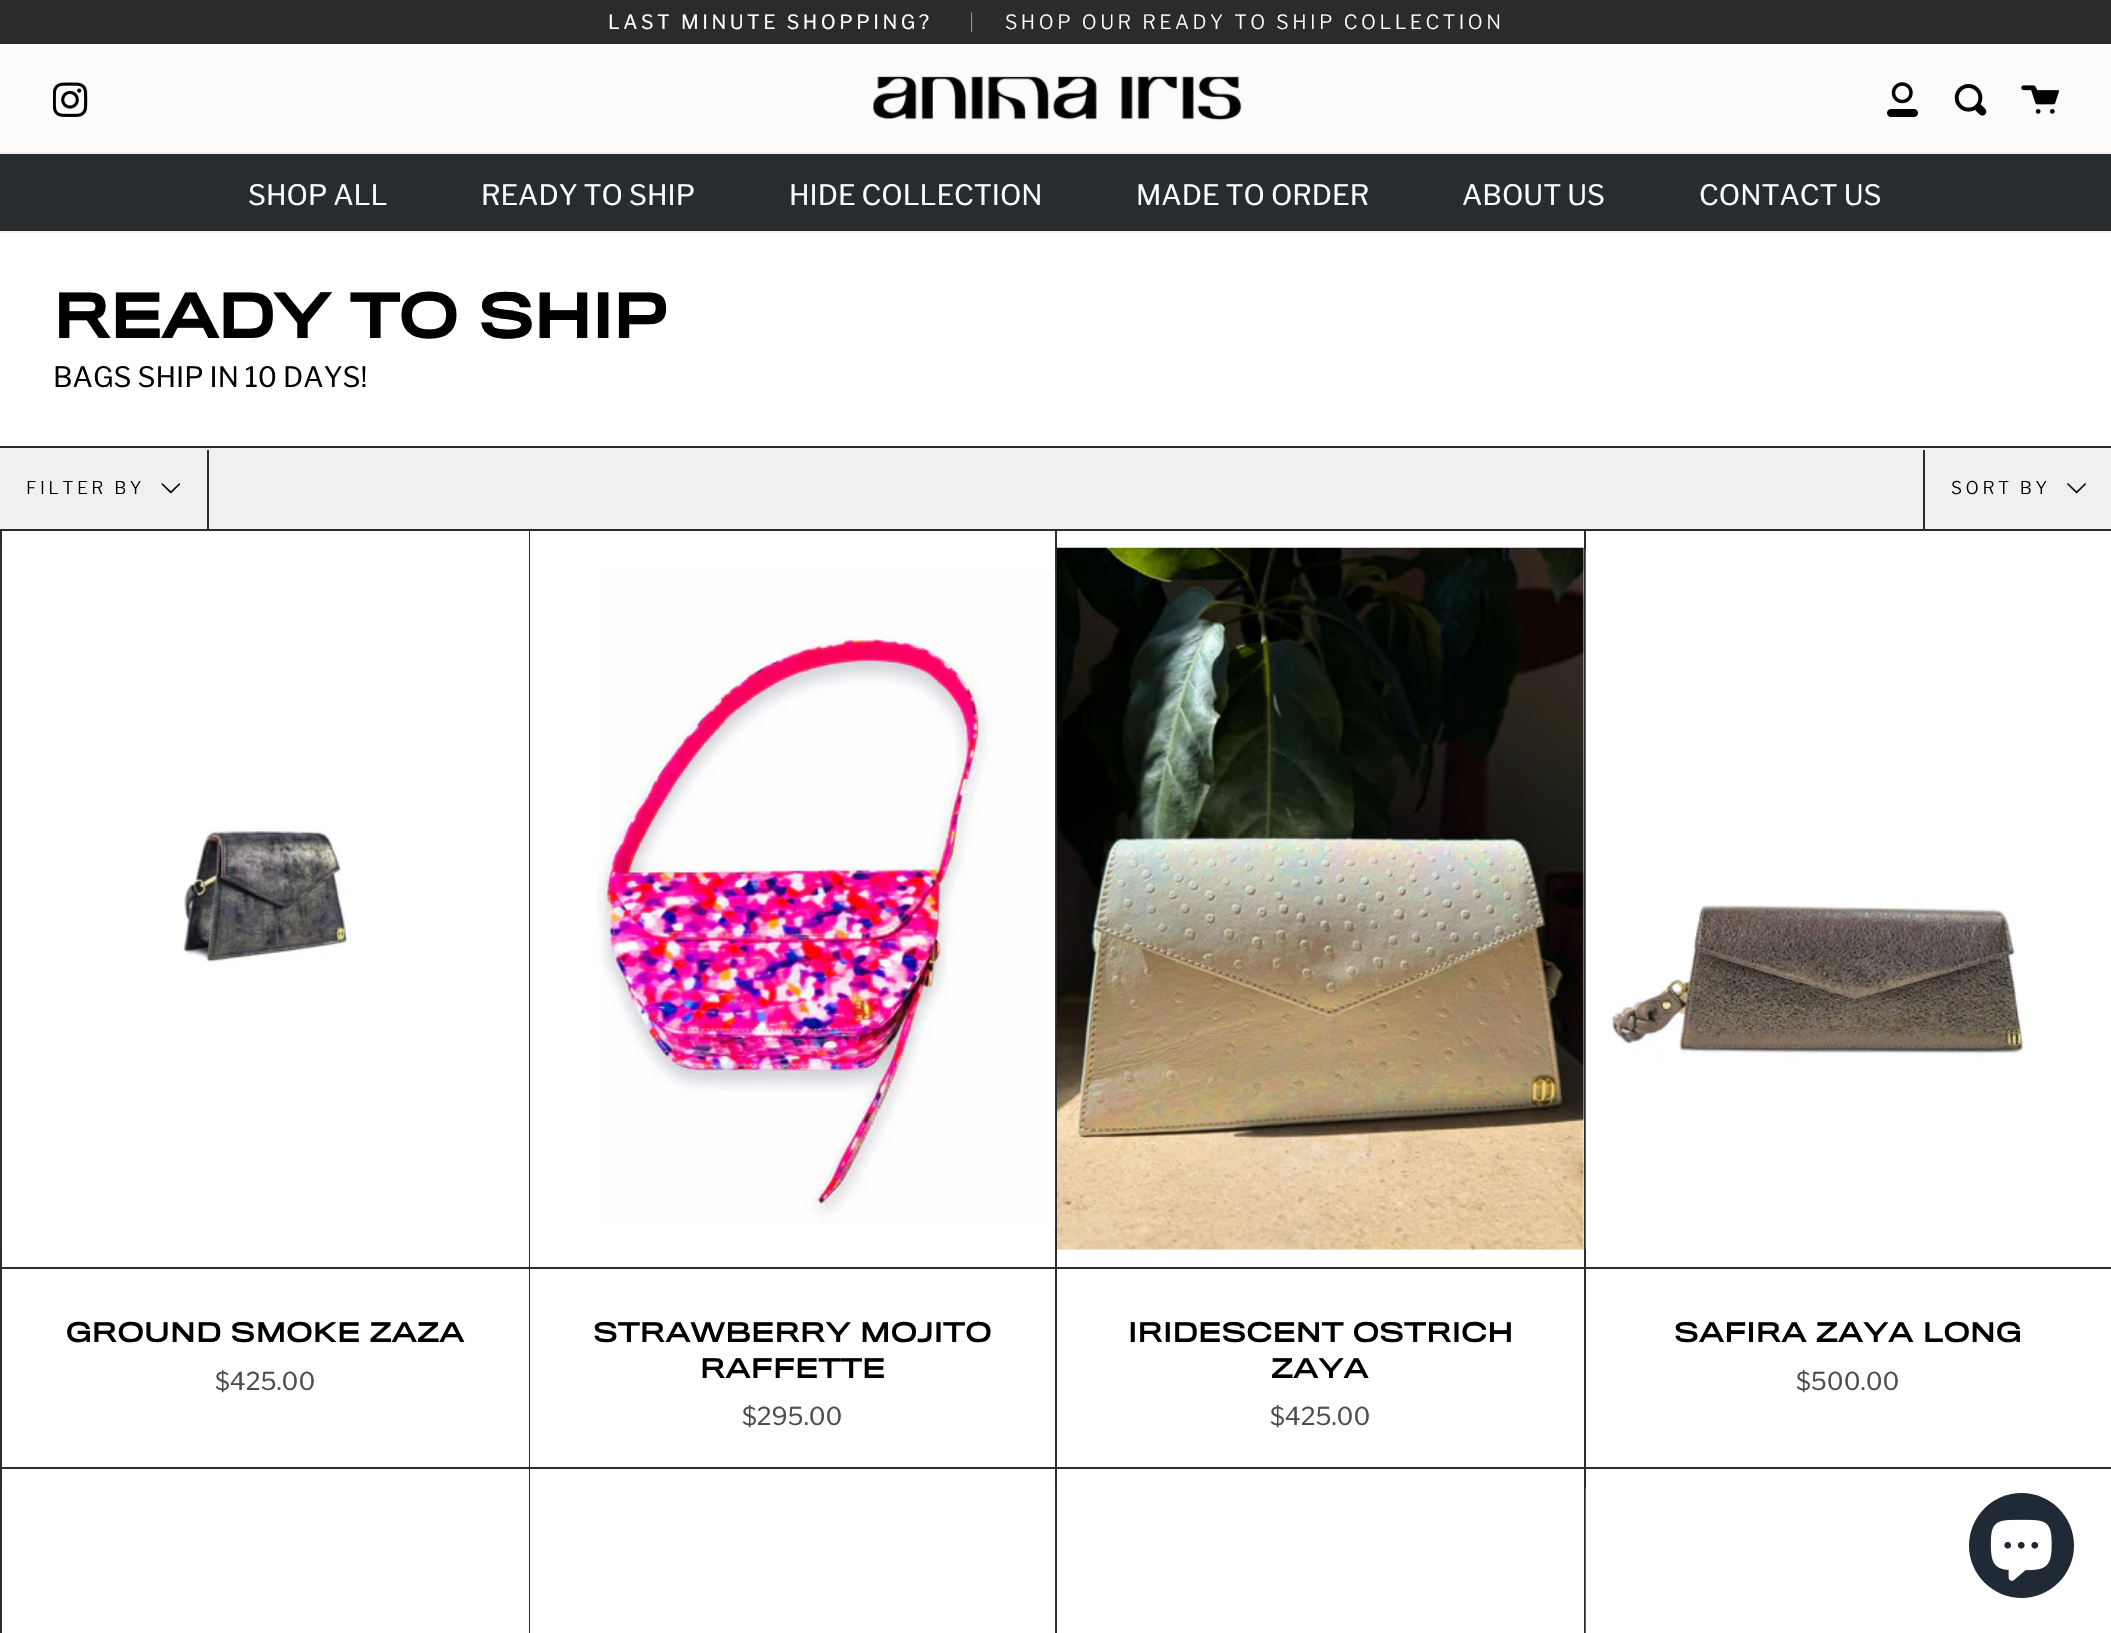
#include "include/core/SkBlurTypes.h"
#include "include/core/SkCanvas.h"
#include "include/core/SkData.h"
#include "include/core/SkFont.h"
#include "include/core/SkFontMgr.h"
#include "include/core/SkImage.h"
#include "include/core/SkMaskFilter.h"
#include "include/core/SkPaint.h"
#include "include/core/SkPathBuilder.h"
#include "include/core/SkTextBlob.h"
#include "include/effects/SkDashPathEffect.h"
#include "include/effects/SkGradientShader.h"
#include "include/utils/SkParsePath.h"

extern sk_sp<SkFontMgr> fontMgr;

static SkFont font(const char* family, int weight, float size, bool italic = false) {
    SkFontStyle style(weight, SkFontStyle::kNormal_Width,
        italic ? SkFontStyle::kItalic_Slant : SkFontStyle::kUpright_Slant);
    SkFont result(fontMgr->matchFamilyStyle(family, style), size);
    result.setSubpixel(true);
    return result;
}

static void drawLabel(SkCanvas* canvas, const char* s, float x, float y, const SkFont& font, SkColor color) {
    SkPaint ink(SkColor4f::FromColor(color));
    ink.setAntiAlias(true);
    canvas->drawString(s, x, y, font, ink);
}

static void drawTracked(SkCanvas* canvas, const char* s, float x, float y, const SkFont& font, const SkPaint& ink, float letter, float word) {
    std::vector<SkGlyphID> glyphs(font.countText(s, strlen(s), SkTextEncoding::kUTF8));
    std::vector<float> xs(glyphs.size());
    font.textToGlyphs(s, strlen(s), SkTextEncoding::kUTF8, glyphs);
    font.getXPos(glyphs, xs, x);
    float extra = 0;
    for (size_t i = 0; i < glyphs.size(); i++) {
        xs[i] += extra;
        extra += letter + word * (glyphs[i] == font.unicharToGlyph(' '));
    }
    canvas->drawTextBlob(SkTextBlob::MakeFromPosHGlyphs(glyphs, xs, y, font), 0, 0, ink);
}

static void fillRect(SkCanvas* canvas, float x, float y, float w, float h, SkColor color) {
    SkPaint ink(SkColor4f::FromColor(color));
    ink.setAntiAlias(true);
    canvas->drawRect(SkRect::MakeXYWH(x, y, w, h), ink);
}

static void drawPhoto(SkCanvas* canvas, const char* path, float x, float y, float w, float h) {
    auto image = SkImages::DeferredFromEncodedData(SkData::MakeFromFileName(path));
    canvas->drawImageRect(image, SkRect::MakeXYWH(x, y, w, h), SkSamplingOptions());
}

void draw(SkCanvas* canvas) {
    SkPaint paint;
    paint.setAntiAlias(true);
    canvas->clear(0xFFFFFFFF);
    fillRect(canvas, 0, 0, 2111, 44, 0xFF2B2B2B);
    SkFont font1 = font("Libre Franklin", 400, 19.6f);
    paint.setColor(0xFFFFFFFF);
    drawTracked(canvas, "LAST MINUTE SHOPPING?", 608, 29, font1, paint, 3.5f, 0);
    SkFont font2 = font("Libre Franklin", 300, 19.6f);
    paint.setColor(0xFF959595);
    drawTracked(canvas, "|", 969, 29, font2, paint, 3.5f, 0);
    paint.setColor(0xFFFFFFFF);
    drawTracked(canvas, "SHOP OUR READY TO SHIP COLLECTION", 1005, 29, font2, paint, 3.5f, 0);
    fillRect(canvas, 0, 44, 2111, 108, 0xFFFDFAFA);
    drawPhoto(canvas, "assets/img1.png", 53, 82, 35, 35);
    drawPhoto(canvas, "assets/img2.png", 873, 75, 369, 46);
    drawPhoto(canvas, "assets/img3.png", 1887, 82, 31, 35);
    drawPhoto(canvas, "assets/img4.png", 1954, 84, 33, 32);
    drawPhoto(canvas, "assets/img5.png", 2021, 85, 38, 29);
    fillRect(canvas, 0, 154, 2111, 77, 0xFF282C2E);
    fillRect(canvas, 0, 152, 2111, 2, 0xFFF0F0F0);
    fillRect(canvas, 0, 231, 2111, 2, 0xFFF0F0F0);
    SkFont font3 = font("Libre Franklin", 400, 28);
    drawLabel(canvas, "SHOP ALL", 248, 205, font3, 0xFFFFFFFF);
    drawLabel(canvas, "READY TO SHIP", 481, 205, font3, 0xFFFFFFFF);
    drawLabel(canvas, "HIDE COLLECTION", 789, 205, font3, 0xFFFFFFFF);
    drawLabel(canvas, "MADE TO ORDER", 1136, 205, font3, 0xFFFFFFFF);
    drawLabel(canvas, "ABOUT US", 1462, 205, font3, 0xFFFFFFFF);
    drawLabel(canvas, "CONTACT US", 1699, 205, font3, 0xFFFFFFFF);
    SkFont font4 = font("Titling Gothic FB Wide", 700, 56);
    drawLabel(canvas, "READY TO SHIP", 53, 338, font4, 0xFF000000);
    drawLabel(canvas, "BAGS SHIP IN 10 DAYS!", 53, 387, font3, 0xFF000000);
    fillRect(canvas, 0, 448, 2111, 81, 0xFFF0F0F0);
    fillRect(canvas, 0, 446, 2111, 2, 0xFF2B2B2B);
    fillRect(canvas, 207, 450, 2, 79, 0xFF2B2B2B);
    SkFont font5 = font("Libre Franklin", 300, 17.5f);
    paint.setColor(0xFF000000);
    drawTracked(canvas, "FILTER BY", 26, 494, font5, paint, 3.5f, 0);
    drawPhoto(canvas, "assets/img6.png", 161, 483, 19, 11);
    fillRect(canvas, 1923, 450, 2, 79, 0xFF2B2B2B);
    drawTracked(canvas, "SORT BY", 1951, 494, font5, paint, 3.5f, 0);
    drawPhoto(canvas, "assets/img7.png", 2067, 483, 19, 11);
    fillRect(canvas, 0, 529, 2, 1104, 0xFF2B2B2B);
    fillRect(canvas, 2, 529, 2109, 2, 0xFF2B2B2B);
    fillRect(canvas, 529, 529, 1, 939, 0xFF2B2B2B);
    fillRect(canvas, 2, 1267, 527, 2, 0xFF2B2B2B);
    drawPhoto(canvas, "assets/img8.png", 1, 548, 347, 702);
    SkFont font6 = font("Titling Gothic FB Wide", 400, 25.25f);
    drawLabel(canvas, "GROUND SMOKE ZAZA", 66, 1342, font6, 0xFF000000);
    SkFont font7 = font("Libre Franklin", 400, 24.5f);
    drawLabel(canvas, "$425.00", 215, 1390, font7, 0xFF4D4D4D);
    fillRect(canvas, 1055, 529, 2, 939, 0xFF2B2B2B);
    fillRect(canvas, 530, 1267, 525, 2, 0xFF2B2B2B);
    drawPhoto(canvas, "assets/img9.png", 597, 570, 459, 657);
    drawLabel(canvas, "STRAWBERRY MOJITO", 593, 1342, font6, 0xFF000000);
    drawLabel(canvas, "RAFFETTE", 700, 1378, font6, 0xFF000000);
    drawLabel(canvas, "$295.00", 742, 1425, font7, 0xFF4D4D4D);
    fillRect(canvas, 1584, 529, 2, 939, 0xFF2B2B2B);
    fillRect(canvas, 1057, 1267, 527, 2, 0xFF2B2B2B);
    drawPhoto(canvas, "assets/img10.png", 1057, 547, 527, 703);
    drawLabel(canvas, "IRIDESCENT OSTRICH", 1128, 1342, font6, 0xFF000000);
    drawLabel(canvas, "ZAYA", 1271, 1378, font6, 0xFF000000);
    drawLabel(canvas, "$425.00", 1270, 1425, font7, 0xFF4D4D4D);
    fillRect(canvas, 1586, 1267, 525, 2, 0xFF2B2B2B);
    drawPhoto(canvas, "assets/img11.png", 1585, 549, 441, 701);
    drawLabel(canvas, "SAFIRA ZAYA LONG", 1674, 1342, font6, 0xFF000000);
    drawLabel(canvas, "$500.00", 1796, 1390, font7, 0xFF4D4D4D);
    fillRect(canvas, 2, 1467, 2109, 2, 0xFF2B2B2B);
    fillRect(canvas, 529, 1467, 1, 166, 0xFF2B2B2B);
    fillRect(canvas, 1, 1486, 1, 147, 0xFF383838);
    fillRect(canvas, 1055, 1467, 2, 166, 0xFF2B2B2B);
    drawPhoto(canvas, "assets/img12.png", 1055, 1487, 1, 146);
    fillRect(canvas, 1584, 1467, 2, 166, 0xFF2B2B2B);
    drawPhoto(canvas, "assets/img13.png", 1585, 1487, 1, 146);
    paint.setColor(0xFF202A36);
    canvas->drawCircle(2021.5f, 1545.5f, 52.5f, paint);
    drawPhoto(canvas, "assets/img14.png", 1990, 1519, 62, 62);
}
